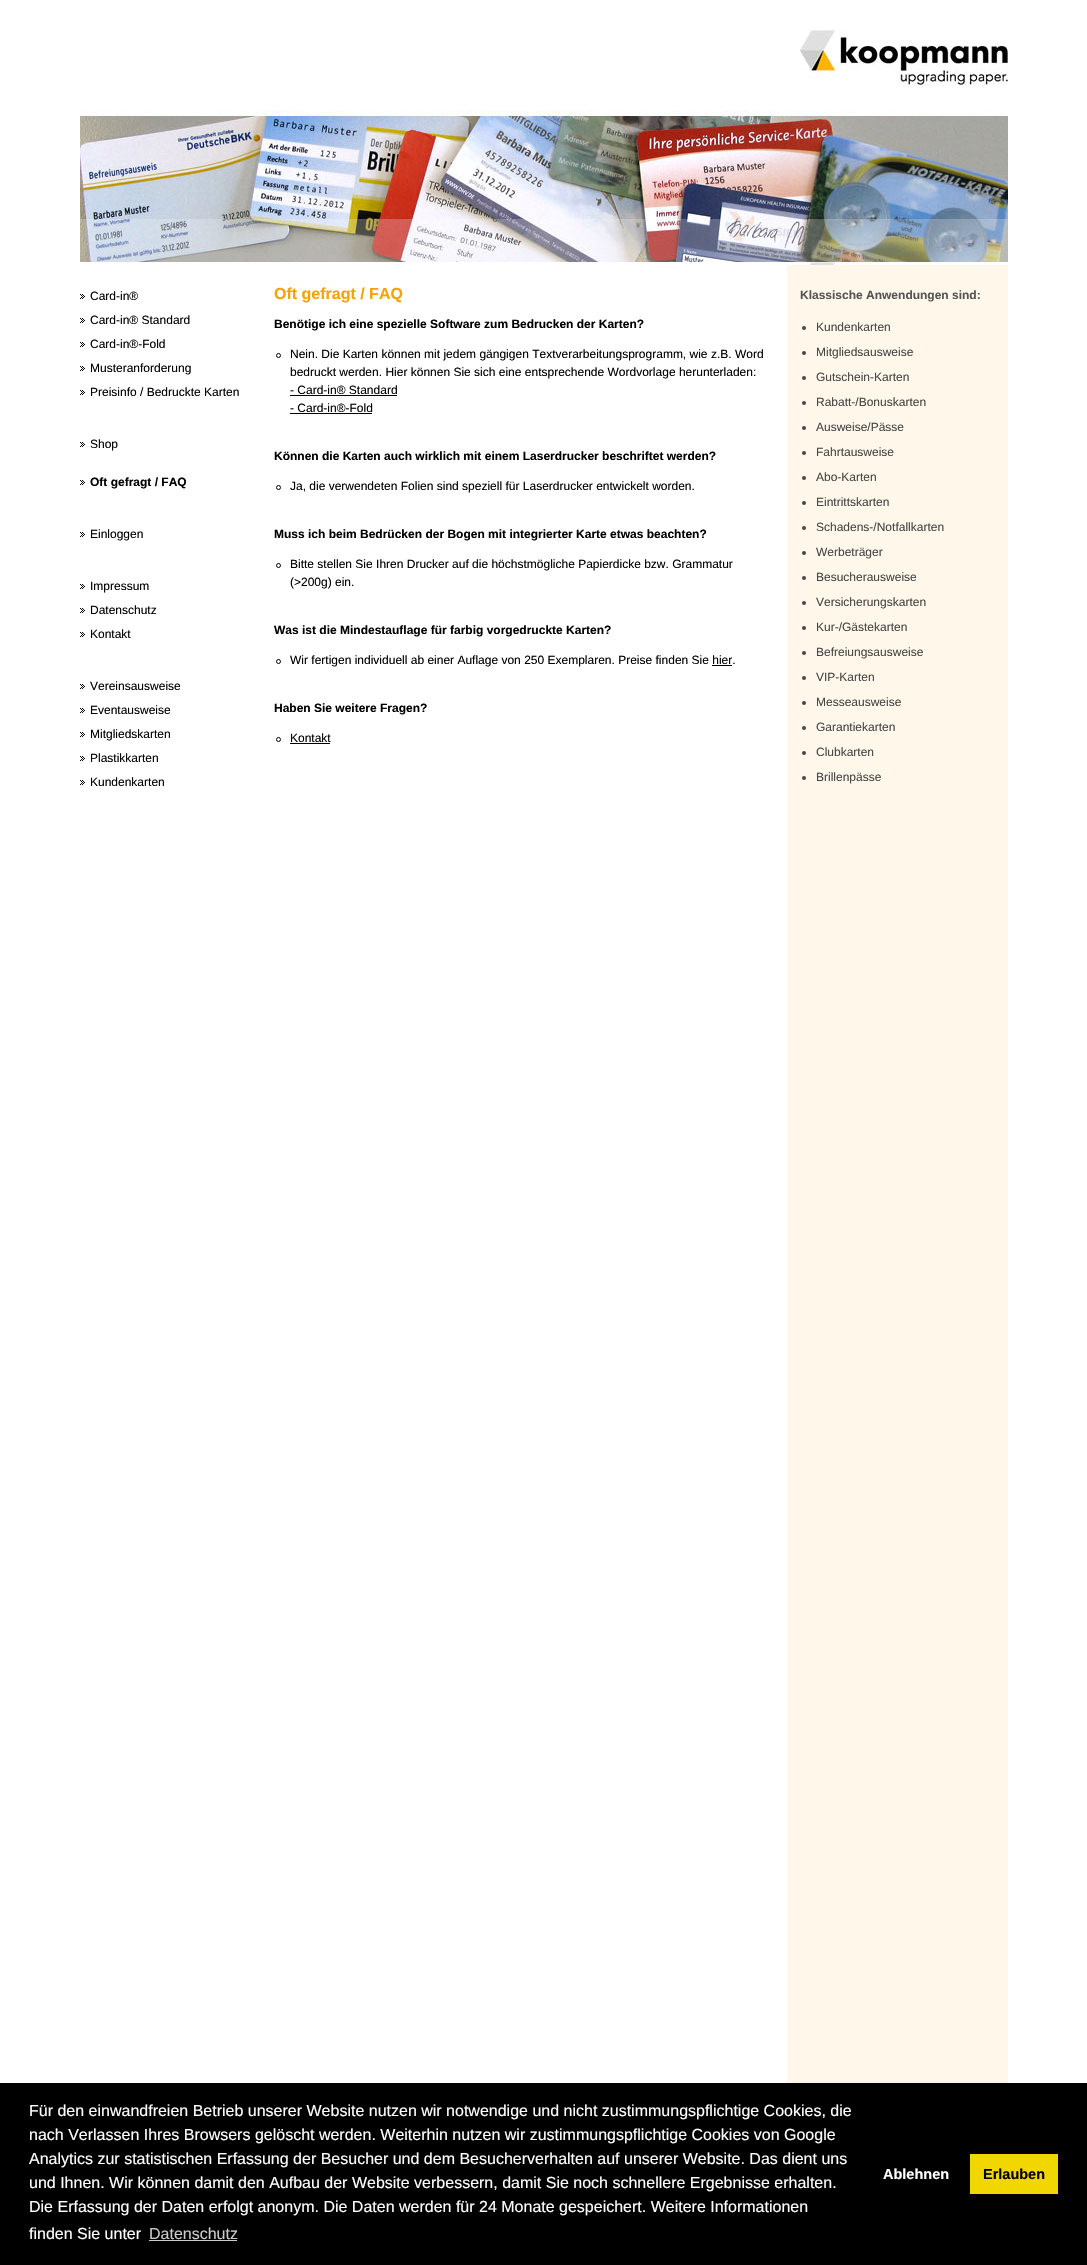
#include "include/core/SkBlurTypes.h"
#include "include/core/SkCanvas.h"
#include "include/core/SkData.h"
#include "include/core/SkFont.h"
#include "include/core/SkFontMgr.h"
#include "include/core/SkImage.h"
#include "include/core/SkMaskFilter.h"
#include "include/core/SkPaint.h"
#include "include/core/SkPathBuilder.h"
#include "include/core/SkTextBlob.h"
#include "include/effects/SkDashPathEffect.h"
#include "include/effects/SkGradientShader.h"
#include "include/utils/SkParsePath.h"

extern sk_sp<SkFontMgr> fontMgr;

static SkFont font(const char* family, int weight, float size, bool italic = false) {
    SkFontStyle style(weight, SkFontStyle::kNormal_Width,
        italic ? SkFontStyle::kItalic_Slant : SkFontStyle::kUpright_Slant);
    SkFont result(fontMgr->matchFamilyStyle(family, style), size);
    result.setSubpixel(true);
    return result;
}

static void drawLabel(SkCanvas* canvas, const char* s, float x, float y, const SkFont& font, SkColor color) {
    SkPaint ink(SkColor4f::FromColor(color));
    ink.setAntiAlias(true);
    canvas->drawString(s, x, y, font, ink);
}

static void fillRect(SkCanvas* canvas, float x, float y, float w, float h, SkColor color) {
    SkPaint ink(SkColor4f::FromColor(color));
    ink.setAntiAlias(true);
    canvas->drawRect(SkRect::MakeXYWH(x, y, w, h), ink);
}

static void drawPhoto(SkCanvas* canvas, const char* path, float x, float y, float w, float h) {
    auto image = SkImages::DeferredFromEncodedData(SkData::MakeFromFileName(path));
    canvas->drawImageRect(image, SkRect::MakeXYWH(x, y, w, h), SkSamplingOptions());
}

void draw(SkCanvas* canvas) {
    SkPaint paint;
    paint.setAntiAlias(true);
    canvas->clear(0xFFFFFFFF);
    fillRect(canvas, 787, 265, 221, 1818, 0xFFFFF7EA);
    drawPhoto(canvas, "assets/img1.png", 80, 30, 928, 235);
    drawPhoto(canvas, "assets/img2.png", 80, 294, 6, 5);
    SkFont font1 = font("Liberation Sans", 400, 12);
    drawLabel(canvas, "Card-in®", 90, 300, font1, 0xFF000000);
    drawPhoto(canvas, "assets/img2.png", 80, 318, 6, 5);
    drawLabel(canvas, "Card-in® Standard", 90, 324, font1, 0xFF000000);
    drawPhoto(canvas, "assets/img2.png", 80, 342, 6, 5);
    drawLabel(canvas, "Card-in®-Fold", 90, 348, font1, 0xFF000000);
    drawPhoto(canvas, "assets/img2.png", 80, 366, 6, 5);
    drawLabel(canvas, "Musteranforderung", 90, 372, font1, 0xFF000000);
    drawPhoto(canvas, "assets/img2.png", 80, 390, 6, 5);
    drawLabel(canvas, "Preisinfo / Bedruckte Karten", 90, 396, font1, 0xFF000000);
    drawPhoto(canvas, "assets/img2.png", 80, 442, 6, 5);
    drawLabel(canvas, "Shop", 90, 448, font1, 0xFF000000);
    drawPhoto(canvas, "assets/img2.png", 80, 480, 6, 5);
    SkFont font2 = font("Liberation Sans", 700, 12);
    drawLabel(canvas, "Oft gefragt / FAQ", 90, 486, font2, 0xFF000000);
    drawPhoto(canvas, "assets/img2.png", 80, 532, 6, 5);
    drawLabel(canvas, "Einloggen", 90, 538, font1, 0xFF000000);
    drawPhoto(canvas, "assets/img2.png", 80, 584, 6, 5);
    drawLabel(canvas, "Impressum", 90, 590, font1, 0xFF000000);
    drawPhoto(canvas, "assets/img2.png", 80, 608, 6, 5);
    drawLabel(canvas, "Datenschutz", 90, 614, font1, 0xFF000000);
    drawPhoto(canvas, "assets/img2.png", 80, 632, 6, 5);
    drawLabel(canvas, "Kontakt", 90, 638, font1, 0xFF000000);
    drawPhoto(canvas, "assets/img2.png", 80, 684, 6, 5);
    drawLabel(canvas, "Vereinsausweise", 90, 690, font1, 0xFF000000);
    drawPhoto(canvas, "assets/img2.png", 80, 708, 6, 5);
    drawLabel(canvas, "Eventausweise", 90, 714, font1, 0xFF000000);
    drawPhoto(canvas, "assets/img2.png", 80, 732, 6, 5);
    drawLabel(canvas, "Mitgliedskarten", 90, 738, font1, 0xFF000000);
    drawPhoto(canvas, "assets/img2.png", 80, 756, 6, 5);
    drawLabel(canvas, "Plastikkarten", 90, 762, font1, 0xFF000000);
    drawPhoto(canvas, "assets/img2.png", 80, 780, 6, 5);
    drawLabel(canvas, "Kundenkarten", 90, 786, font1, 0xFF000000);
    SkFont font3 = font("Liberation Sans", 700, 16);
    drawLabel(canvas, "Oft gefragt / FAQ", 274, 299, font3, 0xFFF4A305);
    drawLabel(canvas, "Benötige ich eine spezielle Software zum Bedrucken der Karten?", 274, 328, font2, 0xFF000000);
    paint.setStroke(true);
    paint.setStrokeWidth(1);
    paint.setColor(0xFF000000);
    canvas->drawCircle(278.5f, 355.5f, 2, paint);
    drawLabel(canvas, "Nein. Die Karten können mit jedem gängigen Textverarbeitungsprogramm, wie z.B. Word", 290, 358, font1, 0xFF000000);
    drawLabel(canvas, "bedruckt werden. Hier können Sie sich eine entsprechende Wordvorlage herunterladen:", 290, 376, font1, 0xFF000000);
    drawLabel(canvas, "- Card-in® Standard", 290, 394, font1, 0xFF000000);
    fillRect(canvas, 290, 395, 107, 1, 0xFF000000);
    drawLabel(canvas, "- Card-in®-Fold", 290, 412, font1, 0xFF000000);
    fillRect(canvas, 290, 413, 82, 1, 0xFF000000);
    drawLabel(canvas, "Können die Karten auch wirklich mit einem Laserdrucker beschriftet werden?", 274, 460, font2, 0xFF000000);
    canvas->drawCircle(278.5f, 487.5f, 2, paint);
    drawLabel(canvas, "Ja, die verwendeten Folien sind speziell für Laserdrucker entwickelt worden.", 290, 490, font1, 0xFF000000);
    drawLabel(canvas, "Muss ich beim Bedrücken der Bogen mit integrierter Karte etwas beachten?", 274, 538, font2, 0xFF000000);
    canvas->drawCircle(278.5f, 565.5f, 2, paint);
    drawLabel(canvas, "Bitte stellen Sie Ihren Drucker auf die höchstmögliche Papierdicke bzw. Grammatur", 290, 568, font1, 0xFF000000);
    drawLabel(canvas, "(>200g) ein.", 290, 586, font1, 0xFF000000);
    drawLabel(canvas, "Was ist die Mindestauflage für farbig vorgedruckte Karten?", 274, 634, font2, 0xFF000000);
    canvas->drawCircle(278.5f, 661.5f, 2, paint);
    drawLabel(canvas, "Wir fertigen individuell ab einer Auflage von 250 Exemplaren. Preise finden Sie hier.", 290, 664, font1, 0xFF000000);
    fillRect(canvas, 712, 665, 20, 1, 0xFF000000);
    drawLabel(canvas, "Haben Sie weitere Fragen?", 274, 712, font2, 0xFF000000);
    canvas->drawCircle(278.5f, 739.5f, 2, paint);
    drawLabel(canvas, "Kontakt", 290, 742, font1, 0xFF000000);
    fillRect(canvas, 290, 743, 40, 1, 0xFF000000);
    drawLabel(canvas, "Klassische Anwendungen sind:", 800, 299, font2, 0xFF555555);
    paint.setStroke(false);
    paint.setColor(0xFF474747);
    canvas->drawCircle(804, 328, 2, paint);
    drawLabel(canvas, "Kundenkarten", 816, 331, font1, 0xFF474747);
    canvas->drawCircle(804, 353, 2, paint);
    drawLabel(canvas, "Mitgliedsausweise", 816, 356, font1, 0xFF474747);
    canvas->drawCircle(804, 378, 2, paint);
    drawLabel(canvas, "Gutschein-Karten", 816, 381, font1, 0xFF474747);
    canvas->drawCircle(804, 403, 2, paint);
    drawLabel(canvas, "Rabatt-/Bonuskarten", 816, 406, font1, 0xFF474747);
    canvas->drawCircle(804, 428, 2, paint);
    drawLabel(canvas, "Ausweise/Pässe", 816, 431, font1, 0xFF474747);
    canvas->drawCircle(804, 453, 2, paint);
    drawLabel(canvas, "Fahrtausweise", 816, 456, font1, 0xFF474747);
    canvas->drawCircle(804, 478, 2, paint);
    drawLabel(canvas, "Abo-Karten", 816, 481, font1, 0xFF474747);
    canvas->drawCircle(804, 503, 2, paint);
    drawLabel(canvas, "Eintrittskarten", 816, 506, font1, 0xFF474747);
    canvas->drawCircle(804, 528, 2, paint);
    drawLabel(canvas, "Schadens-/Notfallkarten", 816, 531, font1, 0xFF474747);
    canvas->drawCircle(804, 553, 2, paint);
    drawLabel(canvas, "Werbeträger", 816, 556, font1, 0xFF474747);
    canvas->drawCircle(804, 578, 2, paint);
    drawLabel(canvas, "Besucherausweise", 816, 581, font1, 0xFF474747);
    canvas->drawCircle(804, 603, 2, paint);
    drawLabel(canvas, "Versicherungskarten", 816, 606, font1, 0xFF474747);
    canvas->drawCircle(804, 628, 2, paint);
    drawLabel(canvas, "Kur-/Gästekarten", 816, 631, font1, 0xFF474747);
    canvas->drawCircle(804, 653, 2, paint);
    drawLabel(canvas, "Befreiungsausweise", 816, 656, font1, 0xFF474747);
    canvas->drawCircle(804, 678, 2, paint);
    drawLabel(canvas, "VIP-Karten", 816, 681, font1, 0xFF474747);
    canvas->drawCircle(804, 703, 2, paint);
    drawLabel(canvas, "Messeausweise", 816, 706, font1, 0xFF474747);
    canvas->drawCircle(804, 728, 2, paint);
    drawLabel(canvas, "Garantiekarten", 816, 731, font1, 0xFF474747);
    canvas->drawCircle(804, 753, 2, paint);
    drawLabel(canvas, "Clubkarten", 816, 756, font1, 0xFF474747);
    canvas->drawCircle(804, 778, 2, paint);
    drawLabel(canvas, "Brillenpässe", 816, 781, font1, 0xFF474747);
    fillRect(canvas, 0, 2083, 1087, 182, 0xFF000000);
    SkFont font4 = font("Liberation Sans", 400, 16);
    drawLabel(canvas, "Für den einwandfreien Betrieb unserer Website nutzen wir notwendige und nicht zustimmungspflichtige Cookies, die", 29, 2116, font4, 0xFFFFFFFF);
    drawLabel(canvas, "nach Verlassen Ihres Browsers gelöscht werden. Weiterhin nutzen wir zustimmungspflichtige Cookies von Google", 29, 2140, font4, 0xFFFFFFFF);
    drawLabel(canvas, "Analytics zur statistischen Erfassung der Besucher und dem Besucherverhalten auf unserer Website. Das dient uns", 29, 2164, font4, 0xFFFFFFFF);
    drawLabel(canvas, "und Ihnen. Wir können damit den Aufbau der Website verbessern, damit Sie noch schnellere Ergebnisse erhalten.", 29, 2188, font4, 0xFFFFFFFF);
    drawLabel(canvas, "Die Erfassung der Daten erfolgt anonym. Die Daten werden für 24 Monate gespeichert. Weitere Informationen", 29, 2212, font4, 0xFFFFFFFF);
    drawLabel(canvas, "finden Sie unter", 29, 2239, font4, 0xFFFFFFFF);
    drawLabel(canvas, "Datenschutz", 149, 2239, font4, 0xFFCCCCCC);
    fillRect(canvas, 149, 2240, 88, 1, 0xFFCCCCCC);
    SkFont font5 = font("Liberation Sans", 700, 14.5f);
    drawLabel(canvas, "Ablehnen", 883, 2179, font5, 0xFFFFFFFF);
    fillRect(canvas, 970, 2154, 88, 40, 0xFFF1D600);
    drawLabel(canvas, "Erlauben", 983, 2179, font5, 0xFF000000);
}
